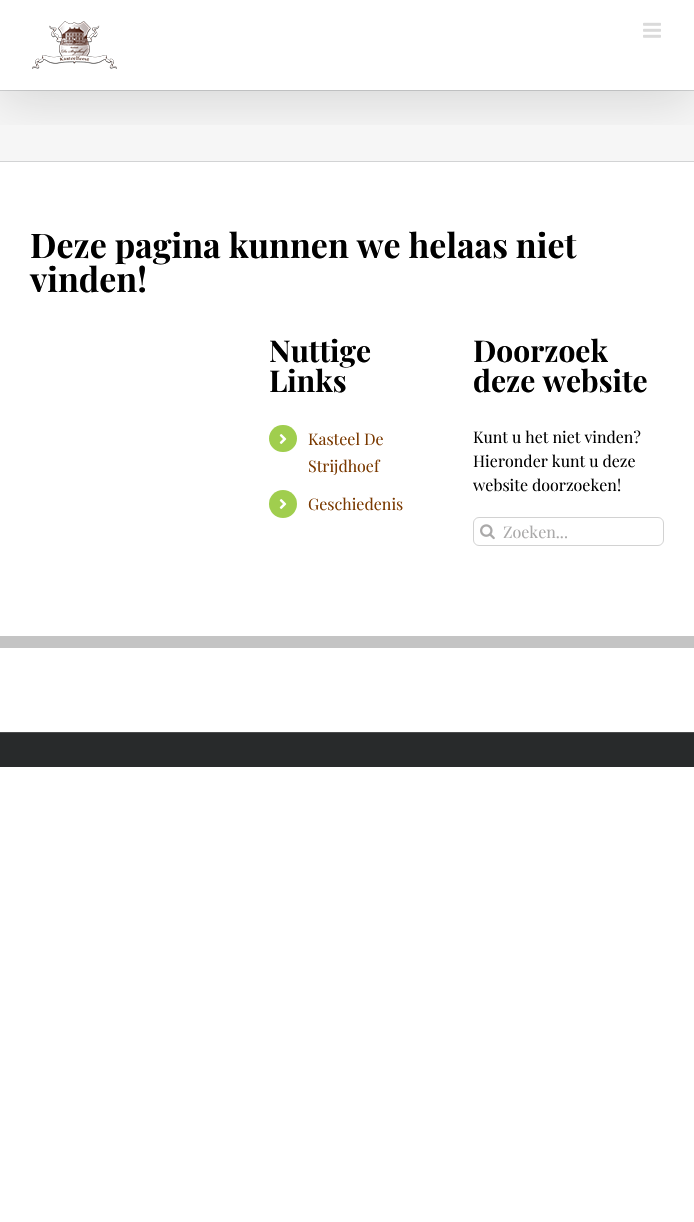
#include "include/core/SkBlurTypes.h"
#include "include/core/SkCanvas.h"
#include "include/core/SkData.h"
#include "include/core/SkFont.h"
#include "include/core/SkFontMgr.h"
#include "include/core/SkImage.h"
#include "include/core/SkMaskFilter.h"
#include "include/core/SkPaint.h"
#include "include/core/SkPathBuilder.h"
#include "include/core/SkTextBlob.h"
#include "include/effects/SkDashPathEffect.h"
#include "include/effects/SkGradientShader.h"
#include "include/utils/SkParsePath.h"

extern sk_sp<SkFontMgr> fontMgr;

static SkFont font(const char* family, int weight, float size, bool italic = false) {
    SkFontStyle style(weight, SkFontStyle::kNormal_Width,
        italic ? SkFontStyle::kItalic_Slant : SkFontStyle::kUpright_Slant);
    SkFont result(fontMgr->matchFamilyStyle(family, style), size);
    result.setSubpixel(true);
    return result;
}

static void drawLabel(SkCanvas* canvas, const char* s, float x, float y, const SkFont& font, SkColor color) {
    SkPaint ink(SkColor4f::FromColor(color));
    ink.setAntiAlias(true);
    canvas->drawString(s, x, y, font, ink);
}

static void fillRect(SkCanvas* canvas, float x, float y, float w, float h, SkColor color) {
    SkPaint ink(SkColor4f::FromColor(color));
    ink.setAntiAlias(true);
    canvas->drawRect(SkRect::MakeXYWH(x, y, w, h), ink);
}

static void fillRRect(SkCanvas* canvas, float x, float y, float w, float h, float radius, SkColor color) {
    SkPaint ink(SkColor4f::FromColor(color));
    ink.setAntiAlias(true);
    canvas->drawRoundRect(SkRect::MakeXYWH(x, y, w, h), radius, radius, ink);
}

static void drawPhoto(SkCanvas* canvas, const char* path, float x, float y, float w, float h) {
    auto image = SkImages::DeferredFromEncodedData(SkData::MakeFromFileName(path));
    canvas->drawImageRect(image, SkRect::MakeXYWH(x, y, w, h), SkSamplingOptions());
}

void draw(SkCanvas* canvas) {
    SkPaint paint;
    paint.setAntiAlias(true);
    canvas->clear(0xFFFFFFFF);
    fillRect(canvas, 0, 91, 694, 70, 0xFFF6F6F6);
    fillRect(canvas, 0, 90, 694, 1, 0xFFD2D3D4);
    fillRect(canvas, 0, 161, 694, 1, 0xFFD2D3D4);
    canvas->save();
    canvas->clipRect(SkRect::MakeXYWH(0, 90, 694, 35));
    paint.setColor(0x24000000);
    paint.setMaskFilter(SkMaskFilter::MakeBlur(kNormal_SkBlurStyle, 25));
    canvas->drawRect(SkRect::MakeXYWH(2, 12, 690, 86), paint);
    paint.setMaskFilter(nullptr);
    canvas->restore();
    drawPhoto(canvas, "assets/img1.png", 32, 21, 85, 48);
    drawPhoto(canvas, "assets/img2.png", 643, 22, 18, 16);
    SkFont font1 = font("Playfair Display", 700, 34);
    drawLabel(canvas, "Deze pagina kunnen we helaas niet", 30, 258, font1, 0xFF000000);
    drawLabel(canvas, "vinden!", 30, 292, font1, 0xFF000000);
    SkFont font2 = font("Playfair Display", 700, 30);
    drawLabel(canvas, "Nuttige", 269, 362, font2, 0xFF000000);
    drawLabel(canvas, "Links", 269, 392, font2, 0xFF000000);
    fillRRect(canvas, 269, 425, 28, 27, 13.5f, 0xFFA0CE4E);
    drawPhoto(canvas, "assets/img3.png", 279, 434, 8, 10);
    SkFont font3 = font("Playfair Display", 400, 16);
    drawLabel(canvas, "Kasteel De", 308, 445, font3, 0xFF7A3900);
    drawLabel(canvas, "Strijdhoef", 308, 472, font3, 0xFF7A3900);
    paint.setColor(0xFFA0CE4E);
    canvas->drawCircle(283, 504, 14, paint);
    drawPhoto(canvas, "assets/img3.png", 279, 499, 8, 10);
    drawLabel(canvas, "Geschiedenis", 308, 510, font3, 0xFF7A3900);
    drawLabel(canvas, "Doorzoek", 473, 362, font2, 0xFF000000);
    drawLabel(canvas, "deze website", 473, 392, font2, 0xFF000000);
    drawLabel(canvas, "Kunt u het niet vinden?", 473, 443, font3, 0xFF000000);
    drawLabel(canvas, "Hieronder kunt u deze", 473, 467, font3, 0xFF000000);
    drawLabel(canvas, "website doorzoeken!", 473, 491, font3, 0xFF000000);
    paint.setStroke(true);
    paint.setStrokeWidth(1);
    paint.setColor(0xFFD2D2D2);
    canvas->drawRoundRect(SkRect::MakeXYWH(473.5f, 517.5f, 190, 28), 5.5f, 5.5f, paint);
    drawPhoto(canvas, "assets/img4.png", 480, 524, 15, 16);
    drawLabel(canvas, "Zoeken...", 503, 538, font3, 0xFFAAA9A9);
    fillRect(canvas, 0, 636, 694, 12, 0xFFC4C4C4);
    fillRect(canvas, 0, 733, 694, 34, 0xFF282A2B);
    fillRect(canvas, 0, 732, 694, 1, 0xFF4B4C4D);
}
